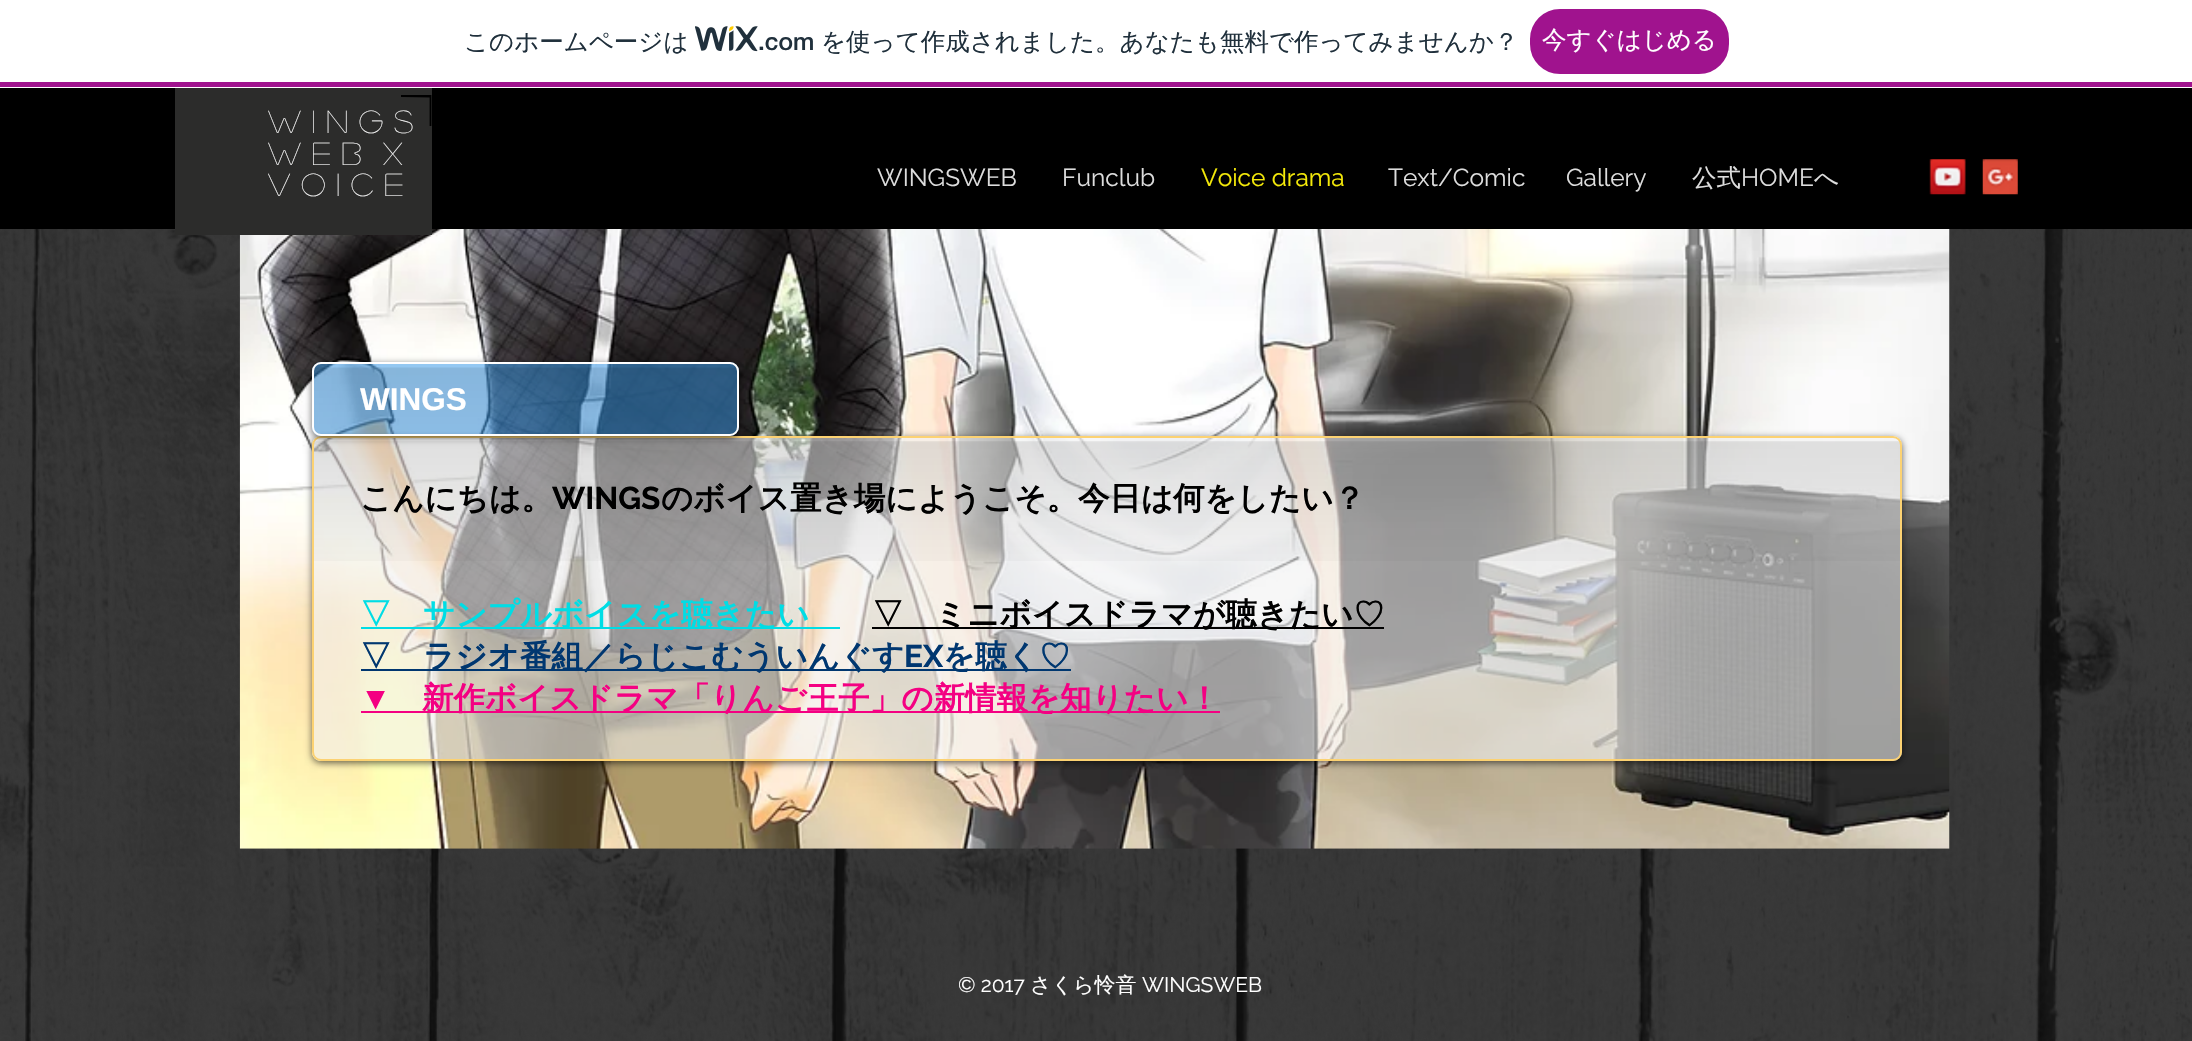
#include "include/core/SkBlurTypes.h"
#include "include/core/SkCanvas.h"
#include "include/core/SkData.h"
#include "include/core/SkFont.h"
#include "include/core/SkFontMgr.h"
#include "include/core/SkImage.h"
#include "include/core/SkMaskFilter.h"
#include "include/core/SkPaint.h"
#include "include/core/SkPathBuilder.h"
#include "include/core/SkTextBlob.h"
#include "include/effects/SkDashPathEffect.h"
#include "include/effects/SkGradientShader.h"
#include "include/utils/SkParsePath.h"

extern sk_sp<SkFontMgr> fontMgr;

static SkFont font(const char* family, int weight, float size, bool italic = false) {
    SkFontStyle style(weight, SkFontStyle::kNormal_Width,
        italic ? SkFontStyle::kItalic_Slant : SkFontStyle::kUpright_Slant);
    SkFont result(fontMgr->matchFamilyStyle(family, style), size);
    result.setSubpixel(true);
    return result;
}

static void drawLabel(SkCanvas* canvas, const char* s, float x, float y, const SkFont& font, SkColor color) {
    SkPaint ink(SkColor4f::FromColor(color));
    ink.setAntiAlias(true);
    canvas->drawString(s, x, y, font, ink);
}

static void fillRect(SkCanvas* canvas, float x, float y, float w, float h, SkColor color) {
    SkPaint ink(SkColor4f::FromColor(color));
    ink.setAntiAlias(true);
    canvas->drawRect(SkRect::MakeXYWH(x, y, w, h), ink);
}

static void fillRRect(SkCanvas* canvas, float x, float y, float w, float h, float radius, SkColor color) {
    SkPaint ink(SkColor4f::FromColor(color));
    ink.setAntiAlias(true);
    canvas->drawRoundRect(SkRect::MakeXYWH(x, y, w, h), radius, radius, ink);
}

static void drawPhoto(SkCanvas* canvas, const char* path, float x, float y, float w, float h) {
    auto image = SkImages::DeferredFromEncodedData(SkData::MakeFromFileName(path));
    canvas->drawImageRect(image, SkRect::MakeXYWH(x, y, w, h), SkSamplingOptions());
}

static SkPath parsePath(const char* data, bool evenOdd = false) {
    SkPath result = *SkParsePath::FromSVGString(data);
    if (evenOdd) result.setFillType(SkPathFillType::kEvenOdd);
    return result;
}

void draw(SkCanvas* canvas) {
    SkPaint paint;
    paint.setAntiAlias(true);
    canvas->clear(0xFF232323);
    fillRect(canvas, 0, 0, 2192, 88, 0xFFFFFFFF);
    fillRect(canvas, 0, 82, 2192, 5, 0xFFA0138E);
    SkFont font1 = font("WenQuanYi Zen Hei", 500, 24.5f);
    drawLabel(canvas, "このホームページは", 464, 50, font1, 0xFF20303C);
    drawPhoto(canvas, "assets/img1.png", 695, 26, 63, 26);
    SkFont font2 = font("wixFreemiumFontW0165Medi", 500, 24.5f);
    drawLabel(canvas, ".com", 758, 50, font2, 0xFF20303C);
    drawLabel(canvas, "を使って作成されました。あなたも無料で作ってみませんか？", 821, 50, font1, 0xFF20303C);
    paint.setColor(0xFFA0138E);
    canvas->drawRoundRect(SkRect::MakeXYWH(1531, 10, 197, 63), 29, 29, paint);
    paint.setStroke(true);
    paint.setStrokeWidth(2);
    canvas->drawRoundRect(SkRect::MakeXYWH(1531, 10, 197, 63), 29, 29, paint);
    drawLabel(canvas, "今すぐはじめる", 1542, 48, font1, 0xFFFFFFFF);
    fillRect(canvas, 0, 88, 2192, 141, 0xFF000000);
    drawPhoto(canvas, "assets/img7.png", 0, 229, 2192, 812);
    drawPhoto(canvas, "assets/img4.png", 239, 229, 1711, 620);
    fillRect(canvas, 175, 88, 257, 147, 0xFF2C2C2B);
    paint.setStrokeWidth(1.8f);
    paint.setColor(0xFF000000);
    canvas->drawPath(parsePath("M401 96L430.5 96.5V126V96Z"), paint);
    SkFont font3 = font("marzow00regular", 400, 31.5f);
    drawLabel(canvas, "W I N G S", 268, 133, font3, 0xFFFFFFFF);
    drawLabel(canvas, "W E B  x", 268, 165, font3, 0xFFFFFFFF);
    drawLabel(canvas, "V O I C E", 268, 196, font3, 0xFFFFFFFF);
    SkFont font4 = font("Raleway", 400, 24.5f);
    drawLabel(canvas, "WINGSWEB", 877, 186, font4, 0xFFDDDDDD);
    drawLabel(canvas, "Funclub", 1062, 186, font4, 0xFFDDDDDD);
    drawLabel(canvas, "Voice drama", 1201, 186, font4, 0xFFF4E909);
    drawLabel(canvas, "Text/Comic", 1388, 186, font4, 0xFFDDDDDD);
    drawLabel(canvas, "Gallery", 1566, 186, font4, 0xFFDDDDDD);
    drawLabel(canvas, "公式", 1692, 186, font1, 0xFFDDDDDD);
    drawLabel(canvas, "HOME", 1741, 186, font4, 0xFFDDDDDD);
    drawLabel(canvas, "へ", 1814, 186, font1, 0xFFDDDDDD);
    drawPhoto(canvas, "assets/img2.png", 1929, 159, 37, 36);
    drawPhoto(canvas, "assets/img3.png", 1982, 159, 36, 36);
    canvas->save();
    canvas->clipPath(parsePath("M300 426H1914V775H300ZM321 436H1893C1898 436 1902 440 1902 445V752C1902 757 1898 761 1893 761H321C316 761 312 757 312 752V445C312 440 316 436 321 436Z", true), true);
    paint.setStroke(false);
    paint.setColor(0x99000000);
    paint.setMaskFilter(SkMaskFilter::MakeBlur(kNormal_SkBlurStyle, 3.5f));
    canvas->drawRoundRect(SkRect::MakeXYWH(312, 438, 1590, 325), 9, 9, paint);
    paint.setMaskFilter(nullptr);
    canvas->restore();
    fillRRect(canvas, 312, 436, 1590, 325, 9, 0x94F1F1F1);
    drawPhoto(canvas, "assets/img6.png", 311, 441, 1591, 120);
    paint.setStroke(true);
    paint.setStrokeWidth(2);
    paint.setColor(0xFFFCD272);
    canvas->drawRoundRect(SkRect::MakeXYWH(313, 437, 1588, 323), 8, 8, paint);
    canvas->save();
    canvas->clipPath(parsePath("M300 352H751V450H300ZM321 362H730C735 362 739 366 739 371V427C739 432 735 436 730 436H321C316 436 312 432 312 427V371C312 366 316 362 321 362Z", true), true);
    paint.setStroke(false);
    paint.setColor(0x99000000);
    paint.setMaskFilter(SkMaskFilter::MakeBlur(kNormal_SkBlurStyle, 3.5f));
    canvas->drawRoundRect(SkRect::MakeXYWH(312, 364, 427, 74), 9, 9, paint);
    paint.setMaskFilter(nullptr);
    canvas->restore();
    fillRRect(canvas, 312, 362, 427, 74, 9, 0x8C3D9BE9);
    drawPhoto(canvas, "assets/img5.png", 312, 367, 425, 69);
    paint.setStroke(true);
    paint.setColor(0xFFFFFFFF);
    canvas->drawRoundRect(SkRect::MakeXYWH(313, 363, 425, 72), 8, 8, paint);
    SkFont font5 = font("Liberation Sans", 700, 31.5f);
    drawLabel(canvas, "WINGS", 360, 410, font5, 0xFFFFFFFF);
    SkFont font6 = font("WenQuanYi Zen Hei", 700, 31.5f);
    drawLabel(canvas, "こんにちは。", 360, 509, font6, 0xFF000000);
    SkFont font7 = font("Raleway", 700, 31.5f);
    drawLabel(canvas, "WINGS", 552, 509, font7, 0xFF000000);
    drawLabel(canvas, "のボイス置き場にようこそ。今日は何をしたい？", 661, 509, font6, 0xFF000000);
    fillRect(canvas, 361, 627, 479, 2, 0xFF00DDE5);
    drawLabel(canvas, "▽　サンプルボイスを聴きたい", 360, 625, font6, 0xFF00DDE5);
    fillRect(canvas, 872, 627, 512, 2, 0xFF000000);
    drawLabel(canvas, "▽　ミニボイスドラマが聴きたい♡", 872, 625, font6, 0xFF000000);
    fillRect(canvas, 361, 669, 710, 2, 0xFF003770);
    drawLabel(canvas, "▽　ラジオ番組／らじこむういんぐす", 360, 667, font6, 0xFF003770);
    drawLabel(canvas, "EX", 904, 667, font7, 0xFF003770);
    drawLabel(canvas, "を聴く♡", 943, 667, font6, 0xFF003770);
    drawLabel(canvas, "▼", 360, 709, font5, 0xFFF40082);
    fillRect(canvas, 361, 711, 859, 2, 0xFFF40082);
    drawLabel(canvas, "新作ボイスドラマ「りんご王子」の新情報を知りたい！", 422, 709, font6, 0xFFF40082);
    SkFont font8 = font("Raleway", 400, 21);
    drawLabel(canvas, "© 2017", 958, 992, font8, 0xFFFFFFFF);
    SkFont font9 = font("WenQuanYi Zen Hei", 500, 21);
    drawLabel(canvas, "さくら怜音", 1030, 992, font9, 0xFFFFFFFF);
    drawLabel(canvas, "WINGSWEB", 1142, 992, font8, 0xFFFFFFFF);
}
